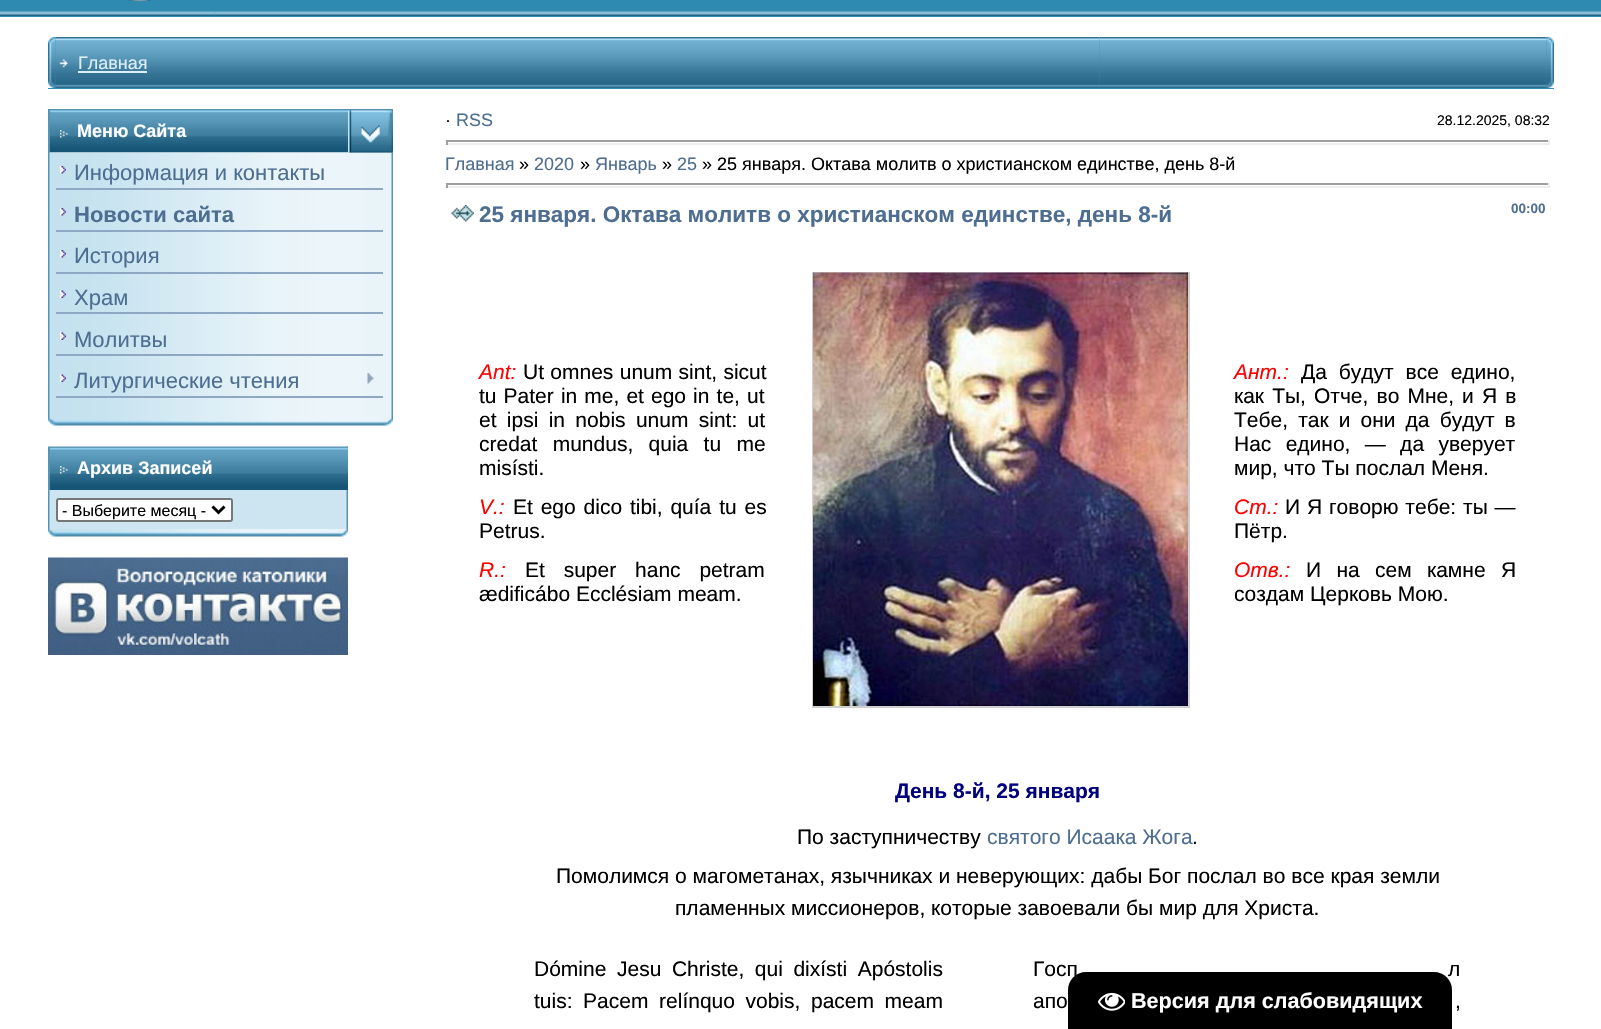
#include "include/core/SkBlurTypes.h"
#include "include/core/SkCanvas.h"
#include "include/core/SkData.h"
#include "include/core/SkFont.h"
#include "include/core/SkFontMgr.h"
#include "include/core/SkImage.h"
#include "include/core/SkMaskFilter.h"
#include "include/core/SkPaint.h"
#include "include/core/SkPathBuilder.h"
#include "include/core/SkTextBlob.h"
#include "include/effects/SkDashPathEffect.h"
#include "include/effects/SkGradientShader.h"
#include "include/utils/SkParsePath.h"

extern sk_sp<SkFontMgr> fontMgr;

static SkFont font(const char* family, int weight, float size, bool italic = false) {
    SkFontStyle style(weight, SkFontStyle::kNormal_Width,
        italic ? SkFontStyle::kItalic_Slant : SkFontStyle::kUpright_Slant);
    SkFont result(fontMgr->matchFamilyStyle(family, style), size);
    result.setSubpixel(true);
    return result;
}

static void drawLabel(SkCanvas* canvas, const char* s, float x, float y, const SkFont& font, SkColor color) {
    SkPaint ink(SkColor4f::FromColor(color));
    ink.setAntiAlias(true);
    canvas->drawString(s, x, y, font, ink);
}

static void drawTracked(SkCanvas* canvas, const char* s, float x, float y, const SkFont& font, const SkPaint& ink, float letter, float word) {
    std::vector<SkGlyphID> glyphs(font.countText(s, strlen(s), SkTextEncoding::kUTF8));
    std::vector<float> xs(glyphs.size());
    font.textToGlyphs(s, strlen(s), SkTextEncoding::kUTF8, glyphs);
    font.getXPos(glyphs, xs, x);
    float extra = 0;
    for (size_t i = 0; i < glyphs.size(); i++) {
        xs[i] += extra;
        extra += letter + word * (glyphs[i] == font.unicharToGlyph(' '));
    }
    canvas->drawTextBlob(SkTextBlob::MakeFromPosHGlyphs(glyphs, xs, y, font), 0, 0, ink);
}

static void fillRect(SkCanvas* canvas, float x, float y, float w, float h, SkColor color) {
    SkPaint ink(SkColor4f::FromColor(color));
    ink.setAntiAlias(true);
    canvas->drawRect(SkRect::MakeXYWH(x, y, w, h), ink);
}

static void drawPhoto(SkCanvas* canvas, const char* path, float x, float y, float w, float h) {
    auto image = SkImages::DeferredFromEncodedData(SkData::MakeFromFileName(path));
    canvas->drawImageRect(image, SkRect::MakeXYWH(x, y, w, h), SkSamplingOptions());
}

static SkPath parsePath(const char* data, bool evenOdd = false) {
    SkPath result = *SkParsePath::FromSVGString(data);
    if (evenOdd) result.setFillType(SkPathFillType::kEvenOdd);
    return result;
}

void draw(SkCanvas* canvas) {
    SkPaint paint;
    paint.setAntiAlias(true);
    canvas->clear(0xFFFFFFFF);
    fillRect(canvas, 0, 0, 215, 17, 0xFF318EB7);
    drawPhoto(canvas, "assets/img1.png", 0, 0, 215, 16);
    drawPhoto(canvas, "assets/img2.png", 129, 0, 22, 1);
    fillRect(canvas, 215, 16, 1386, 1, 0xFF318EB7);
    drawPhoto(canvas, "assets/img3.png", 214, 0, 1160, 16);
    drawPhoto(canvas, "assets/img4.png", 1374, 0, 227, 16);
    fillRect(canvas, 48, 38, 1499, 51, 0xFF318EB7);
    drawPhoto(canvas, "assets/img6.png", 55, 37, 1045, 51);
    drawPhoto(canvas, "assets/img5.png", 48, 37, 8, 51);
    drawPhoto(canvas, "assets/img7.png", 59, 59, 9, 9);
    SkFont font1 = font("Liberation Sans", 400, 18);
    drawLabel(canvas, "Главная", 78, 69, font1, 0xFFDDEEF7);
    fillRect(canvas, 78, 71, 69, 2, 0xFFDDEEF7);
    drawPhoto(canvas, "assets/img8.png", 1099, 37, 448, 51);
    fillRect(canvas, 1547, 88, 7, 1, 0xFF318EB7);
    drawPhoto(canvas, "assets/img9.png", 1546, 37, 8, 51);
    drawPhoto(canvas, "assets/img10.png", 48, 109, 300, 44);
    fillRect(canvas, 48, 110, 2, 43, 0xFF5694B5);
    drawPhoto(canvas, "assets/img11.png", 60, 130, 8, 8);
    SkFont font2 = font("Liberation Sans", 700, 18);
    drawLabel(canvas, "Меню Сайта", 77, 137, font2, 0xFFFFFFFF);
    drawPhoto(canvas, "assets/img12.png", 348, 109, 45, 44);
    drawPhoto(canvas, "assets/img14.png", 48, 152, 345, 266);
    drawPhoto(canvas, "assets/img13.png", 348, 110, 45, 43);
    drawPhoto(canvas, "assets/img15.png", 60, 166, 6, 8);
    fillRect(canvas, 56, 188, 327, 2, 0xFF8EA8C4);
    SkFont font3 = font("Liberation Sans", 400, 22);
    drawLabel(canvas, "Информация и контакты", 74, 180, font3, 0xFF4D6D91);
    drawPhoto(canvas, "assets/img15.png", 60, 208, 6, 8);
    fillRect(canvas, 56, 230, 327, 2, 0xFF8EA8C4);
    SkFont font4 = font("Liberation Sans", 700, 22);
    drawLabel(canvas, "Новости сайта", 74, 222, font4, 0xFF4D6D91);
    drawPhoto(canvas, "assets/img15.png", 60, 250, 6, 8);
    fillRect(canvas, 56, 272, 327, 2, 0xFF8EA8C4);
    drawLabel(canvas, "История", 74, 263, font3, 0xFF4D6D91);
    drawPhoto(canvas, "assets/img16.png", 60, 290, 6, 8);
    fillRect(canvas, 56, 312, 327, 2, 0xFF8EA8C4);
    drawLabel(canvas, "Храм", 74, 305, font3, 0xFF4D6D91);
    drawPhoto(canvas, "assets/img16.png", 60, 332, 6, 8);
    fillRect(canvas, 56, 354, 327, 2, 0xFF8EA8C4);
    drawLabel(canvas, "Молитвы", 74, 347, font3, 0xFF4D6D91);
    drawPhoto(canvas, "assets/img16.png", 60, 374, 6, 8);
    fillRect(canvas, 56, 396, 327, 2, 0xFF8EA8C4);
    drawLabel(canvas, "Литургические чтения", 74, 388, font3, 0xFF4D6D91);
    drawPhoto(canvas, "assets/img17.png", 367, 373, 7, 11);
    drawPhoto(canvas, "assets/img18.png", 48, 418, 345, 8);
    drawPhoto(canvas, "assets/img19.png", 48, 446, 255, 44);
    fillRect(canvas, 48, 447, 2, 44, 0xFF5694B5);
    drawPhoto(canvas, "assets/img20.png", 60, 466, 8, 8);
    drawLabel(canvas, "Архив Записей", 77, 474, font2, 0xFFFFFFFF);
    drawPhoto(canvas, "assets/img21.png", 303, 446, 45, 44);
    drawPhoto(canvas, "assets/img22.png", 346, 446, 2, 1);
    drawPhoto(canvas, "assets/img23.png", 48, 490, 300, 39);
    paint.setColor(0xFFFFFFFF);
    canvas->drawRoundRect(SkRect::MakeXYWH(57, 499, 175, 22), 2, 2, paint);
    paint.setStroke(true);
    paint.setStrokeWidth(2);
    paint.setColor(0xFF767676);
    canvas->drawRoundRect(SkRect::MakeXYWH(57, 499, 175, 22), 2, 2, paint);
    paint.setStrokeWidth(3);
    paint.setColor(0xFF000000);
    canvas->drawPath(parsePath("M212.5 506.5L218.5 512.5L224.5 506.5"), paint);
    SkFont font5 = font("Liberation Sans", 400, 16);
    drawLabel(canvas, "- Выберите месяц -", 62, 516, font5, 0xFF000000);
    drawPhoto(canvas, "assets/img24.png", 48, 529, 300, 8);
    drawPhoto(canvas, "assets/img25.png", 48, 557, 300, 98);
    drawLabel(canvas, "·", 445, 126, font1, 0xFF000000);
    drawLabel(canvas, "RSS", 456, 126, font1, 0xFF4D6D91);
    SkFont font6 = font("Liberation Sans", 400, 14);
    drawLabel(canvas, "28.12.2025, 08:32", 1437, 125, font6, 0xFF000000);
    fillRect(canvas, 446, 140, 1104, 2, 0xFF9F9F9F);
    fillRect(canvas, 1548, 140, 2, 5, 0xFFEEEEEE);
    fillRect(canvas, 446, 143, 1104, 2, 0xFFEEEEEE);
    fillRect(canvas, 446, 140, 2, 5, 0xFF9F9F9F);
    drawLabel(canvas, "Главная", 445, 170, font1, 0xFF4D6D91);
    drawLabel(canvas, "»", 519, 170, font1, 0xFF000000);
    drawLabel(canvas, "2020", 534, 170, font1, 0xFF4D6D91);
    drawLabel(canvas, "»", 580, 170, font1, 0xFF000000);
    drawLabel(canvas, "Январь", 595, 170, font1, 0xFF4D6D91);
    drawLabel(canvas, "»", 662, 170, font1, 0xFF000000);
    drawLabel(canvas, "25", 677, 170, font1, 0xFF4D6D91);
    drawLabel(canvas, "» 25 января. Октава молитв о христианском единстве, день 8-й", 702, 170, font1, 0xFF000000);
    fillRect(canvas, 446, 183, 1104, 2, 0xFF9F9F9F);
    fillRect(canvas, 1548, 183, 2, 5, 0xFFEEEEEE);
    fillRect(canvas, 446, 186, 1104, 2, 0xFFEEEEEE);
    fillRect(canvas, 446, 183, 2, 5, 0xFF9F9F9F);
    drawPhoto(canvas, "assets/img26.png", 451, 205, 23, 17);
    SkFont font7 = font("Liberation Sans", 700, 22.5f);
    drawLabel(canvas, "25 января. Октава молитв о христианском единстве, день 8-й", 479, 222, font7, 0xFF4D6D91);
    SkFont font8 = font("Liberation Sans", 700, 13.5f);
    drawLabel(canvas, "00:00", 1511, 213, font8, 0xFF4D6D91);
    SkFont font9 = font("Liberation Sans", 400, 21, true);
    drawLabel(canvas, "Ant:", 479, 379, font9, 0xFFFF0000);
    SkFont font10 = font("Liberation Sans", 400, 21);
    paint.setStroke(false);
    drawTracked(canvas, "Ut omnes unum sint, sicut", 523, 379, font10, paint, 0, 0.5f);
    drawTracked(canvas, "tu Pater in me, et ego in te, ut", 479, 403, font10, paint, 0, 1.25f);
    drawTracked(canvas, "et ipsi in nobis unum sint: ut", 479, 427, font10, paint, 0, 4.5f);
    drawTracked(canvas, "credat mundus, quia tu me", 479, 451, font10, paint, 0, 9.5f);
    drawLabel(canvas, "misísti.", 479, 475, font10, 0xFF000000);
    drawLabel(canvas, "V.:", 479, 514, font9, 0xFFFF0000);
    drawTracked(canvas, "Et ego dico tibi, quía tu es", 513, 514, font10, paint, 0, 2);
    drawLabel(canvas, "Petrus.", 479, 538, font10, 0xFF000000);
    drawLabel(canvas, "R.:", 479, 577, font9, 0xFFFF0000);
    drawTracked(canvas, "Et super hanc petram", 525, 577, font10, paint, 0, 13);
    drawLabel(canvas, "ædificábo Ecclésiam meam.", 479, 601, font10, 0xFF000000);
    paint.setStroke(true);
    paint.setStrokeWidth(2);
    paint.setColor(0xFFD0D0D0);
    canvas->drawRect(SkRect::MakeXYWH(813, 273, 376, 434), paint);
    drawPhoto(canvas, "assets/img27.png", 813, 272, 375, 434);
    drawLabel(canvas, "Ант.:", 1234, 379, font9, 0xFFFF0000);
    paint.setStroke(false);
    paint.setColor(0xFF000000);
    drawTracked(canvas, "Да будут все едино,", 1301, 379, font10, paint, 0, 6);
    drawTracked(canvas, "как Ты, Отче, во Мне, и Я в", 1234, 403, font10, paint, 0, 2.25f);
    drawTracked(canvas, "Тебе, так и они да будут в", 1234, 427, font10, paint, 0, 4.25f);
    drawTracked(canvas, "Нас едино, — да уверует", 1234, 451, font10, paint, 0, 8.5f);
    drawLabel(canvas, "мир, что Ты послал Меня.", 1234, 475, font10, 0xFF000000);
    drawLabel(canvas, "Ст.:", 1234, 514, font9, 0xFFFF0000);
    drawTracked(canvas, "И Я говорю тебе: ты —", 1285, 514, font10, paint, 0, 1);
    drawLabel(canvas, "Пётр.", 1234, 538, font10, 0xFF000000);
    drawLabel(canvas, "Отв.:", 1234, 577, font9, 0xFFFF0000);
    drawTracked(canvas, "И на сем камне Я", 1306, 577, font10, paint, 0, 9.5f);
    drawLabel(canvas, "создам Церковь Мою.", 1234, 601, font10, 0xFF000000);
    SkFont font11 = font("Liberation Sans", 700, 21);
    drawLabel(canvas, "День 8-й, 25 января", 895, 798, font11, 0xFF000080);
    drawLabel(canvas, "По заступничеству", 797, 844, font10, 0xFF000000);
    drawLabel(canvas, "святого Исаака Жога", 987, 844, font10, 0xFF4D6D91);
    drawLabel(canvas, ".", 1192, 844, font10, 0xFF000000);
    drawLabel(canvas, "Помолимся о магометанах, язычниках и неверующих: дабы Бог послал во все края земли", 556, 883, font10, 0xFF000000);
    drawLabel(canvas, "пламенных миссионеров, которые завоевали бы мир для Христа.", 675, 915, font10, 0xFF000000);
    drawTracked(canvas, "Dómine Jesu Christe, qui dixísti Apóstolis", 534, 976, font10, paint, 0, 4.75f);
    drawTracked(canvas, "tuis: Pacem relínquo vobis, pacem meam", 534, 1008, font10, paint, 0, 4.75f);
    drawTracked(canvas, "Госп", 1033, 976, font10, paint, 0, 22);
    drawTracked(canvas, "л", 1448, 976, font10, paint, 0, 22);
    drawTracked(canvas, "апо", 1033, 1008, font10, paint, 0, 10);
    drawTracked(canvas, ",", 1455, 1008, font10, paint, 0, 10);
    canvas->drawPath(parsePath("M1086 972H1434C1444 972 1452 980 1452 990V1029H1068V990C1068 980 1076 972 1086 972Z"), paint);
    drawPhoto(canvas, "assets/img28.png", 1098, 992, 27, 19);
    SkFont font12 = font("Liberation Sans", 700, 21.6f);
    drawLabel(canvas, "Версия для слабовидящих", 1131, 1008, font12, 0xFFFFFFFF);
}
